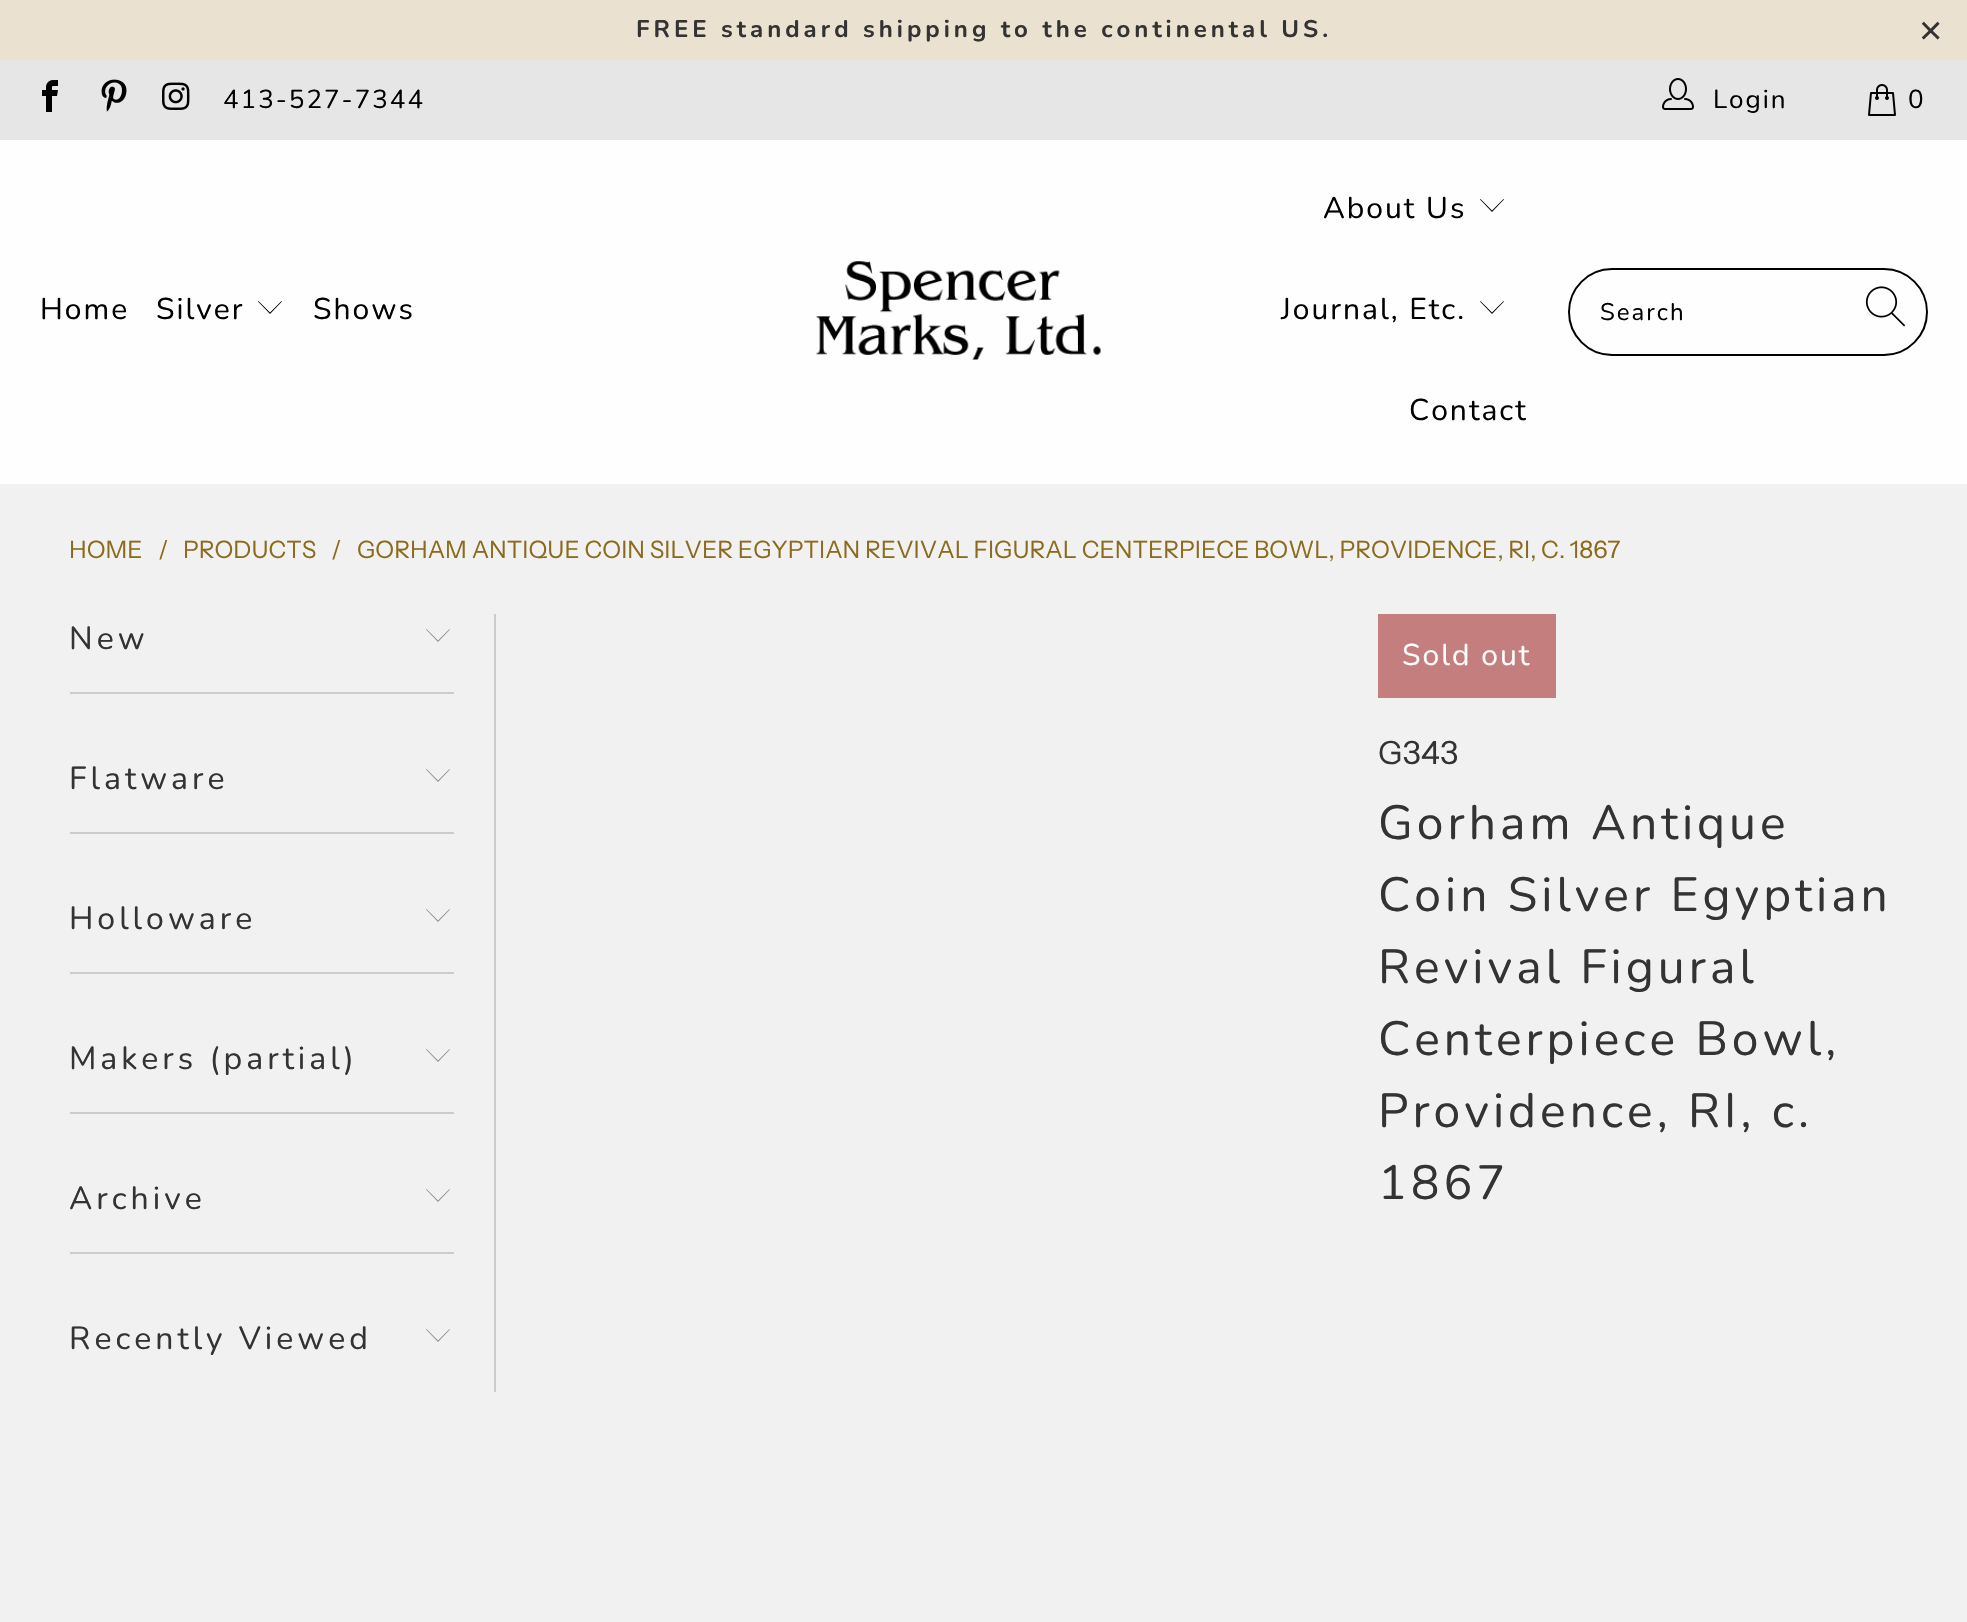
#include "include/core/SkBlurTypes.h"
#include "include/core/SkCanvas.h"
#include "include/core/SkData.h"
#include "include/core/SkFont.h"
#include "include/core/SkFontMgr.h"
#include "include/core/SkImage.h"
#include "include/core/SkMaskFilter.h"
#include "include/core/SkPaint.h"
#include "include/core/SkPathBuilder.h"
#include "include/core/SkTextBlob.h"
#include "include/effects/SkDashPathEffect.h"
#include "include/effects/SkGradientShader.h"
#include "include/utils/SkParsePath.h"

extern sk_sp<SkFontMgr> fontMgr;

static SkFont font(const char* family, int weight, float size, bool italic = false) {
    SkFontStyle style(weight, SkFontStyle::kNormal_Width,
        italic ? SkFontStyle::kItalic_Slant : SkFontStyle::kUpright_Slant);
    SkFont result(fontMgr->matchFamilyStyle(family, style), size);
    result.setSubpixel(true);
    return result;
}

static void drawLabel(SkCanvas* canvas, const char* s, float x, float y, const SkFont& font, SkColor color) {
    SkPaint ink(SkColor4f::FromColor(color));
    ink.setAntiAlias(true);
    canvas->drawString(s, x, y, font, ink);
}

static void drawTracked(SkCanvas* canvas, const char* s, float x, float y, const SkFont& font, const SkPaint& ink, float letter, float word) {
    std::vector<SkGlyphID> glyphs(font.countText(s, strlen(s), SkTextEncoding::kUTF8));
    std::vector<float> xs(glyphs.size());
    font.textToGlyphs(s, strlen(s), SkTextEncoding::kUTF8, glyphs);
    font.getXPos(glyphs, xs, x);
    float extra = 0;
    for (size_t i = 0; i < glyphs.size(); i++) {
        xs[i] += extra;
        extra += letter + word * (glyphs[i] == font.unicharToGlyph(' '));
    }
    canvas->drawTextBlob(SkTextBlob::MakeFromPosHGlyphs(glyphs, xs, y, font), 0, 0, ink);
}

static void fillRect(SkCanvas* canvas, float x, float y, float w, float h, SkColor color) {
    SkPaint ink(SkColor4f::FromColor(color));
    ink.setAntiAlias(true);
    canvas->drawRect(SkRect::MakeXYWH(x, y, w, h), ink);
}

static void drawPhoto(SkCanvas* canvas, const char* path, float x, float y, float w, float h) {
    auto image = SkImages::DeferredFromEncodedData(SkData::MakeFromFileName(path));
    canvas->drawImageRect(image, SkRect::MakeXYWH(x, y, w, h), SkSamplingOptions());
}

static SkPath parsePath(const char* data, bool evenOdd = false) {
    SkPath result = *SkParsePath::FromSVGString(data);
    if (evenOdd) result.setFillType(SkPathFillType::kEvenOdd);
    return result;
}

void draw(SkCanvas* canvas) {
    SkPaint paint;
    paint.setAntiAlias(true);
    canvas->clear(0xFFF1F1F1);
    fillRect(canvas, 0, 0, 1967, 60, 0xFFEAE1D1);
    SkFont font1 = font("Nunito", 700, 24);
    paint.setColor(0xFF333333);
    drawTracked(canvas, "FREE standard shipping to the continental US.", 636, 37, font1, paint, 4, 0);
    SkFont font2 = font("Liberation Sans", 400, 40);
    drawTracked(canvas, "×", 1919, 44, font2, paint, 4, 0);
    fillRect(canvas, 0, 60, 1967, 80, 0xFFE6E6E6);
    drawPhoto(canvas, "assets/img1.png", 42, 80, 16, 32);
    drawPhoto(canvas, "assets/img2.png", 101, 79, 26, 33);
    drawPhoto(canvas, "assets/img3.png", 162, 82, 28, 28);
    SkFont font3 = font("Nunito", 400, 26);
    paint.setColor(0xFF000000);
    drawTracked(canvas, "413-527-7344", 223, 108, font3, paint, 2, 0);
    drawPhoto(canvas, "assets/img4.png", 1662, 78, 32, 32);
    drawTracked(canvas, "Login", 1713, 108, font3, paint, 2, 0);
    drawPhoto(canvas, "assets/img5.png", 1868, 84, 28, 32);
    drawTracked(canvas, "0", 1908, 108, font3, paint, 2, 0);
    fillRect(canvas, 0, 140, 1967, 344, 0xFFFEFEFE);
    SkFont font4 = font("Nunito", 400, 30);
    drawTracked(canvas, "Home", 40, 319, font4, paint, 2, 0);
    drawTracked(canvas, "Silver", 156, 319, font4, paint, 2, 0);
    canvas->drawPath(parsePath("M270 314L258 301.5L258.5 301L270 312.5L281.5 301L282 301.5Z"), paint);
    drawTracked(canvas, "Shows", 313, 319, font4, paint, 2, 0);
    drawPhoto(canvas, "assets/img6.png", 816, 261, 285, 99);
    drawTracked(canvas, "About Us", 1323, 218, font4, paint, 2, 0);
    canvas->drawPath(parsePath("M1492 212L1480 199.5L1480.5 199L1492 210.5L1503.5 199L1504 199.5Z"), paint);
    drawTracked(canvas, "Journal, Etc.", 1281, 319, font4, paint, 2, 0);
    canvas->drawPath(parsePath("M1492 314L1480 301.5L1480.5 301L1492 312.5L1503.5 301L1504 301.5Z"), paint);
    drawTracked(canvas, "Contact", 1409, 420, font4, paint, 2, 0);
    paint.setStroke(true);
    paint.setStrokeWidth(2);
    canvas->drawRoundRect(SkRect::MakeXYWH(1569, 269, 358, 86), 43, 43, paint);
    SkFont font5 = font("Nunito", 400, 24);
    paint.setStroke(false);
    drawTracked(canvas, "Search", 1600, 320, font5, paint, 2, 0);
    drawPhoto(canvas, "assets/img7.png", 1865, 286, 41, 41);
    SkFont font6 = font("Instrument Sans", 400, 24);
    drawLabel(canvas, "HOME", 69, 558, font6, 0xFF8B6A1B);
    drawLabel(canvas, "/", 158, 558, font6, 0xFF8B6A1B);
    drawLabel(canvas, "PRODUCTS", 183, 558, font6, 0xFF8B6A1B);
    drawLabel(canvas, "/", 331, 558, font6, 0xFF8B6A1B);
    drawLabel(canvas, "GORHAM ANTIQUE COIN SILVER EGYPTIAN REVIVAL FIGURAL CENTERPIECE BOWL, PROVIDENCE, RI, C. 1867", 357, 558, font6, 0xFF8B6A1B);
    fillRect(canvas, 494, 614, 2, 778, 0xFFCCCCCC);
    fillRect(canvas, 70, 692, 384, 2, 0xFFCCCCCC);
    SkFont font7 = font("Nunito", 400, 32);
    paint.setColor(0xFF333333);
    drawTracked(canvas, "New", 69, 649, font7, paint, 4, 0);
    paint.setColor(0xFF8C8B8B);
    canvas->drawPath(parsePath("M438 642L426 629.5L426.5 629L438 640.5L449.5 629L450 629.5Z"), paint);
    fillRect(canvas, 70, 832, 384, 2, 0xFFCCCCCC);
    paint.setColor(0xFF333333);
    drawTracked(canvas, "Flatware", 69, 789, font7, paint, 4, 0);
    paint.setColor(0xFF8C8B8B);
    canvas->drawPath(parsePath("M438 782L426 769.5L426.5 769L438 780.5L449.5 769L450 769.5Z"), paint);
    fillRect(canvas, 70, 972, 384, 2, 0xFFCCCCCC);
    paint.setColor(0xFF333333);
    drawTracked(canvas, "Holloware", 69, 929, font7, paint, 4, 0);
    paint.setColor(0xFF8C8B8B);
    canvas->drawPath(parsePath("M438 922L426 909.5L426.5 909L438 920.5L449.5 909L450 909.5Z"), paint);
    fillRect(canvas, 70, 1112, 384, 2, 0xFFCCCCCC);
    paint.setColor(0xFF333333);
    drawTracked(canvas, "Makers (partial)", 69, 1069, font7, paint, 4, 0);
    paint.setColor(0xFF8C8B8B);
    canvas->drawPath(parsePath("M438 1062L426 1049.5L426.5 1049L438 1060.5L449.5 1049L450 1049.5Z"), paint);
    fillRect(canvas, 70, 1252, 384, 2, 0xFFCCCCCC);
    paint.setColor(0xFF333333);
    drawTracked(canvas, "Archive", 69, 1209, font7, paint, 4, 0);
    paint.setColor(0xFF8C8B8B);
    canvas->drawPath(parsePath("M438 1202L426 1189.5L426.5 1189L438 1200.5L449.5 1189L450 1189.5Z"), paint);
    paint.setColor(0xFF333333);
    drawTracked(canvas, "Recently Viewed", 69, 1349, font7, paint, 4, 0);
    paint.setColor(0xFF8C8B8B);
    canvas->drawPath(parsePath("M438 1342L426 1329.5L426.5 1329L438 1340.5L449.5 1329L450 1329.5Z"), paint);
    fillRect(canvas, 1378, 614, 178, 84, 0xFFC57E7E);
    paint.setColor(0xFFFFFFFF);
    drawTracked(canvas, "Sold out", 1402, 665, font4, paint, 2, 0);
    SkFont font8 = font("Instrument Sans", 400, 32);
    drawLabel(canvas, "G343", 1378, 764, font8, 0xFF333333);
    SkFont font9 = font("Nunito", 400, 48);
    paint.setColor(0xFF333333);
    drawTracked(canvas, "Gorham Antique", 1378, 839, font9, paint, 4, 0);
    drawTracked(canvas, "Coin Silver Egyptian", 1378, 911, font9, paint, 4, 0);
    drawTracked(canvas, "Revival Figural", 1378, 983, font9, paint, 4, 0);
    drawTracked(canvas, "Centerpiece Bowl,", 1378, 1055, font9, paint, 4, 0);
    drawTracked(canvas, "Providence, RI, c.", 1378, 1127, font9, paint, 4, 0);
    drawTracked(canvas, "1867", 1378, 1199, font9, paint, 4, 0);
}
